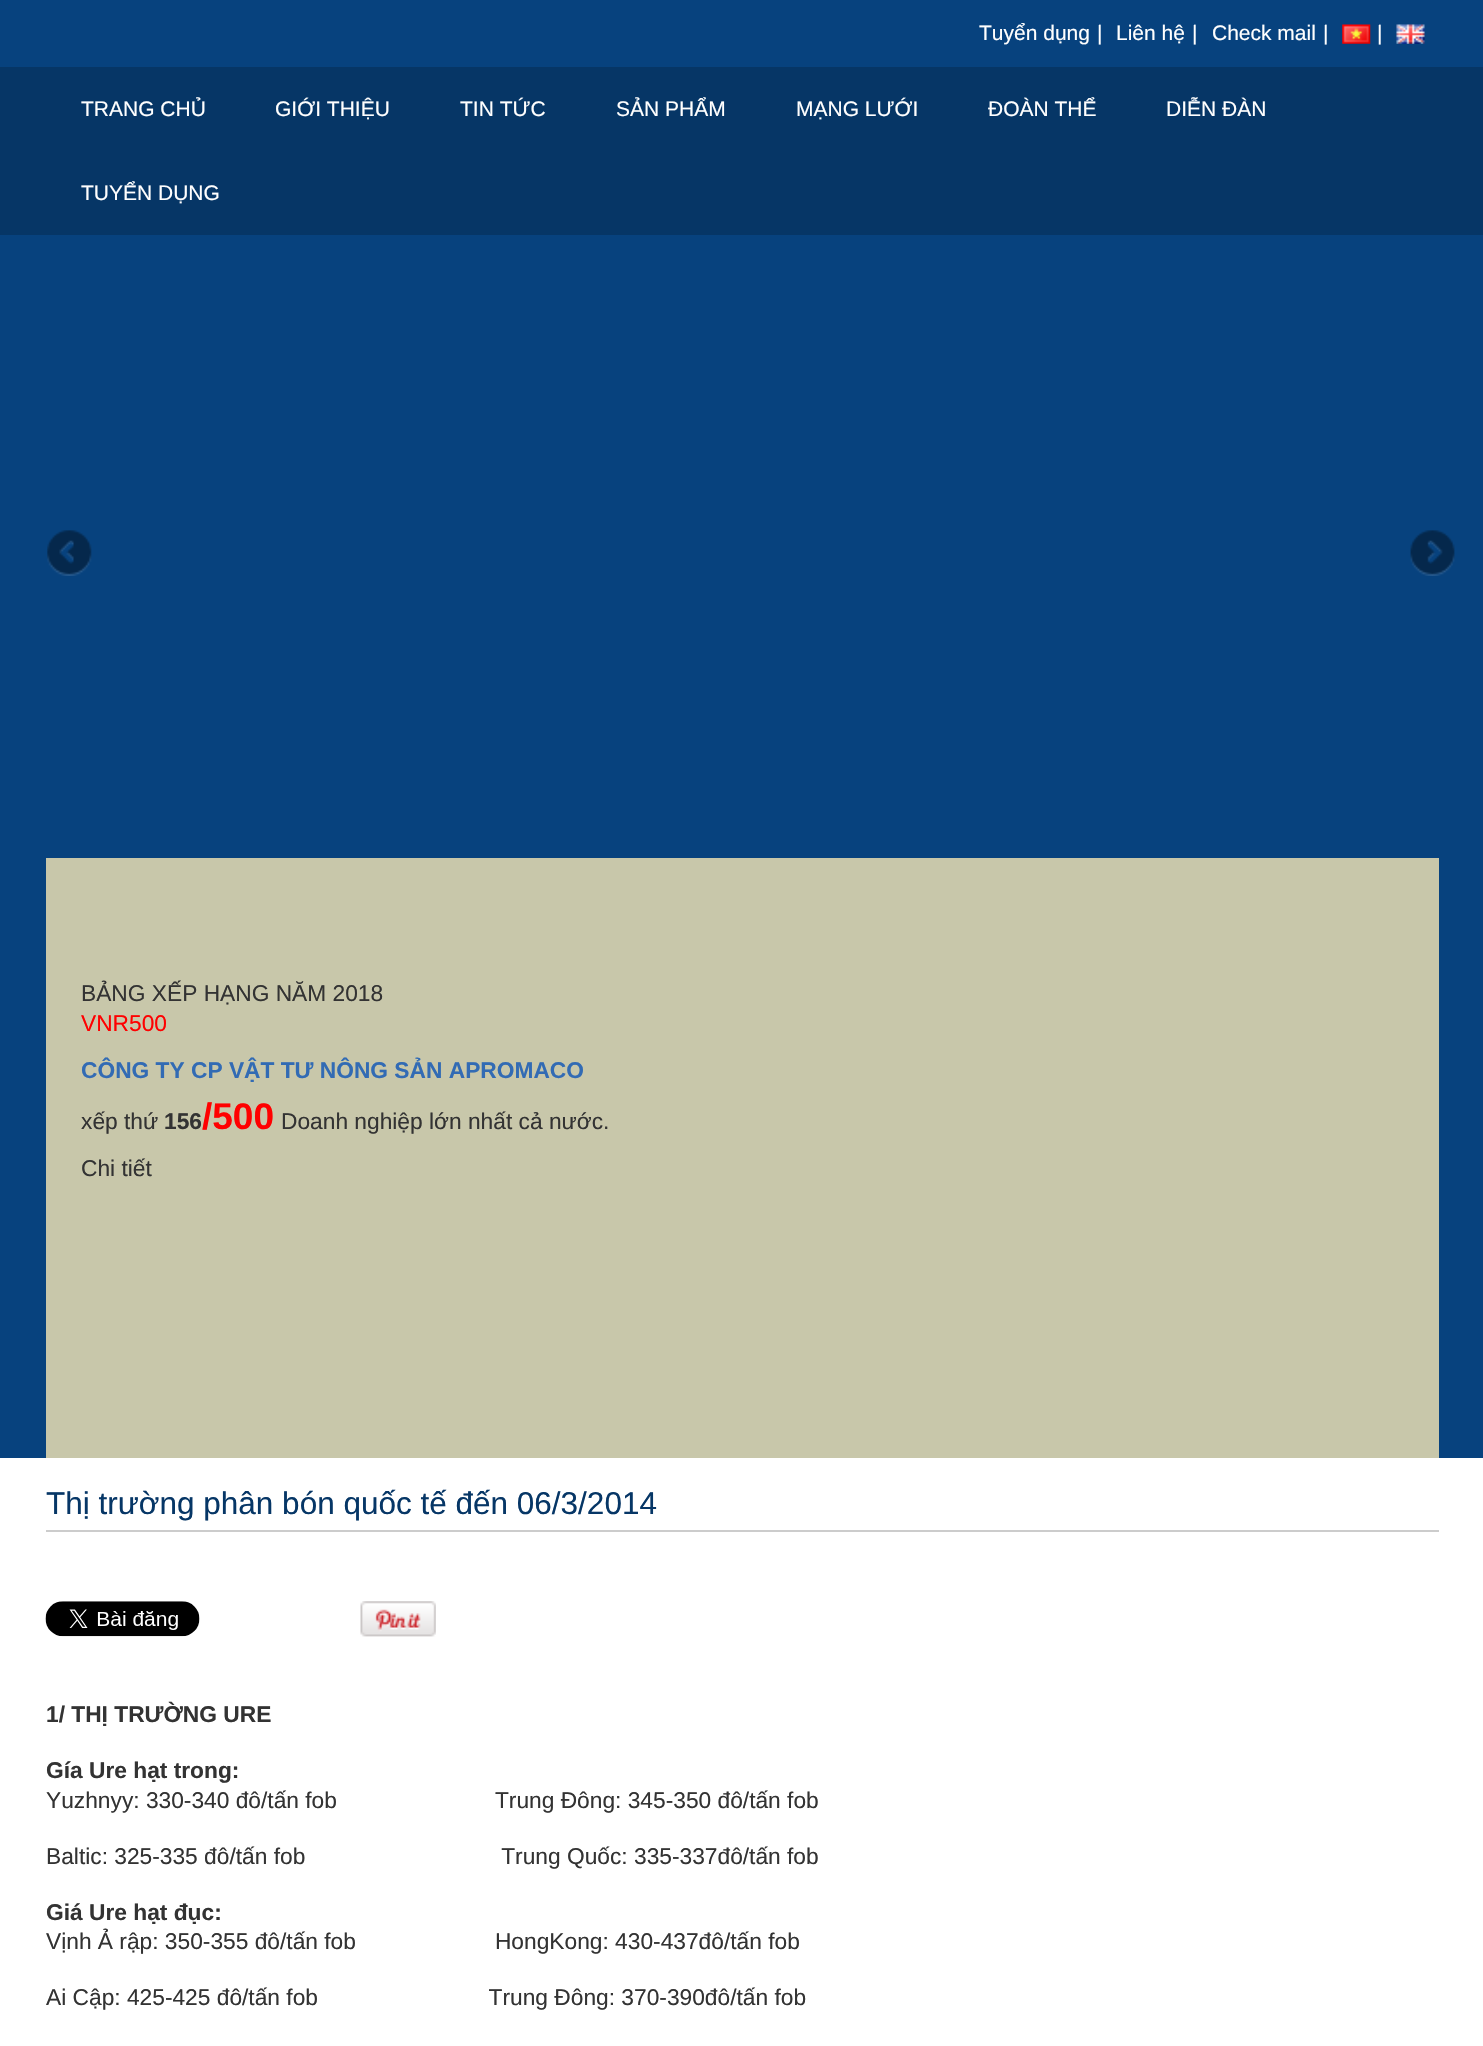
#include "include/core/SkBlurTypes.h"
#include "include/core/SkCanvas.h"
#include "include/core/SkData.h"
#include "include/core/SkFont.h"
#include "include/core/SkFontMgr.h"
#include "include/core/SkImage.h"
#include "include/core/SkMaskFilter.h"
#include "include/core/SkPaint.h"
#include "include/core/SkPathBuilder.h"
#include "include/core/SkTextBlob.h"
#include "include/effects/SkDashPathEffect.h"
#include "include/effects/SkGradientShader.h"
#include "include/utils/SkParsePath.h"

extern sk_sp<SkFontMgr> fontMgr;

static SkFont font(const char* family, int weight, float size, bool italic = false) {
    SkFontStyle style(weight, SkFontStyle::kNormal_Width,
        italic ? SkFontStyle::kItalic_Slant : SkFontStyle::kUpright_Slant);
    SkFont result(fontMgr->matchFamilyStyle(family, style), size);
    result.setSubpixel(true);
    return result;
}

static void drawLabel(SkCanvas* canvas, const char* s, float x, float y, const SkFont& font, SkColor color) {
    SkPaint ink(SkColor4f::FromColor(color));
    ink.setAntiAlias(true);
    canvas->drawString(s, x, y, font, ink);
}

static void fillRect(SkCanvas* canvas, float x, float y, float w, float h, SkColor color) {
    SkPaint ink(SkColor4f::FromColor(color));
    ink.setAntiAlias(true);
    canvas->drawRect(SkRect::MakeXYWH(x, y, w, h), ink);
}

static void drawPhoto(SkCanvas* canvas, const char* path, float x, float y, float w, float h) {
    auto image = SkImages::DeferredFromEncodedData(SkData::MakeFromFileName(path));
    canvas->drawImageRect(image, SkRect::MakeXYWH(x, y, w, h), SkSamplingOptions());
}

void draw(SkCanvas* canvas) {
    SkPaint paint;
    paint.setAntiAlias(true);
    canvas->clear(0xFFFFFFFF);
    fillRect(canvas, 0, 0, 1483, 1458, 0xFF07427E);
    SkFont font1 = font("Liberation Sans", 400, 21);
    drawLabel(canvas, "Tuyển dụng", 979, 40, font1, 0xFFFFFFFF);
    drawLabel(canvas, "|", 1097, 40, font1, 0xFFFFFFFF);
    drawLabel(canvas, "Liên hệ", 1116, 40, font1, 0xFFFFFFFF);
    drawLabel(canvas, "|", 1192, 40, font1, 0xFFFFFFFF);
    drawLabel(canvas, "Check mail", 1212, 40, font1, 0xFFFFFFFF);
    drawLabel(canvas, "|", 1323, 40, font1, 0xFFFFFFFF);
    drawPhoto(canvas, "assets/img1.png", 1342, 24, 29, 20);
    drawLabel(canvas, "|", 1377, 40, font1, 0xFFFFFFFF);
    drawPhoto(canvas, "assets/img2.png", 1396, 24, 29, 20);
    fillRect(canvas, 0, 67, 1483, 168, 0xFF063666);
    drawLabel(canvas, "TRANG CHỦ", 81, 116, font1, 0xFFFFFFFF);
    drawLabel(canvas, "GIỚI THIỆU", 275, 116, font1, 0xFFFFFFFF);
    drawLabel(canvas, "TIN TỨC", 460, 116, font1, 0xFFFFFFFF);
    drawLabel(canvas, "SẢN PHẨM", 616, 116, font1, 0xFFFFFFFF);
    drawLabel(canvas, "MẠNG LƯỚI", 796, 116, font1, 0xFFFFFFFF);
    drawLabel(canvas, "ĐOÀN THỂ", 988, 116, font1, 0xFFFFFFFF);
    drawLabel(canvas, "DIỄN ĐÀN", 1166, 116, font1, 0xFFFFFFFF);
    drawLabel(canvas, "TUYỂN DỤNG", 81, 200, font1, 0xFFFFFFFF);
    drawPhoto(canvas, "assets/img3.png", 47, 530, 45, 46);
    drawPhoto(canvas, "assets/img4.png", 1410, 530, 45, 46);
    fillRect(canvas, 46, 858, 1393, 600, 0xFFC8C7AA);
    SkFont font2 = font("Liberation Sans", 400, 22.75f);
    drawLabel(canvas, "BẢNG XẾP HẠNG NĂM 2018", 81, 1001, font2, 0xFF333333);
    drawLabel(canvas, "VNR500", 81, 1031, font2, 0xFFFF0000);
    SkFont font3 = font("Liberation Sans", 700, 22.75f);
    drawLabel(canvas, "CÔNG TY CP VẬT TƯ NÔNG SẢN APROMACO", 81, 1078, font3, 0xFF326BB4);
    drawLabel(canvas, "xếp thứ", 81, 1129, font2, 0xFF333333);
    drawLabel(canvas, "156", 164, 1129, font3, 0xFF333333);
    SkFont font4 = font("Liberation Sans", 700, 37);
    drawLabel(canvas, "/500", 202, 1129, font4, 0xFFFF0000);
    drawLabel(canvas, "Doanh nghiệp lớn nhất cả nước.", 281, 1129, font2, 0xFF333333);
    drawLabel(canvas, "Chi tiết", 81, 1176, font2, 0xFF333333);
    fillRect(canvas, 46, 1530, 1393, 2, 0xFFCCCCCC);
    SkFont font5 = font("Liberation Sans", 400, 31.5f);
    drawLabel(canvas, "Thị trường phân bón quốc tế đến 06/3/2014", 46, 1514, font5, 0xFF063666);
    drawPhoto(canvas, "assets/img5.png", 45, 1601, 155, 36);
    drawPhoto(canvas, "assets/img6.png", 360, 1601, 76, 36);
    drawLabel(canvas, "1/ THỊ TRƯỜNG URE", 46, 1722, font3, 0xFF333333);
    drawLabel(canvas, "Gía Ure hạt trong:", 46, 1778, font3, 0xFF333333);
    drawLabel(canvas, "Yuzhnyy: 330-340 đô/tấn fob                         Trung Đông: 345-350 đô/tấn fob", 46, 1808, font2, 0xFF333333);
    drawLabel(canvas, "Baltic: 325-335 đô/tấn fob                               Trung Quốc: 335-337đô/tấn fob", 46, 1864, font2, 0xFF333333);
    drawLabel(canvas, "Giá Ure hạt đục:", 46, 1920, font3, 0xFF333333);
    drawLabel(canvas, "Vịnh Ả rập: 350-355 đô/tấn fob                      HongKong: 430-437đô/tấn fob", 46, 1949, font2, 0xFF333333);
    drawLabel(canvas, "Ai Cập: 425-425 đô/tấn fob                           Trung Đông: 370-390đô/tấn fob", 46, 2005, font2, 0xFF333333);
}
